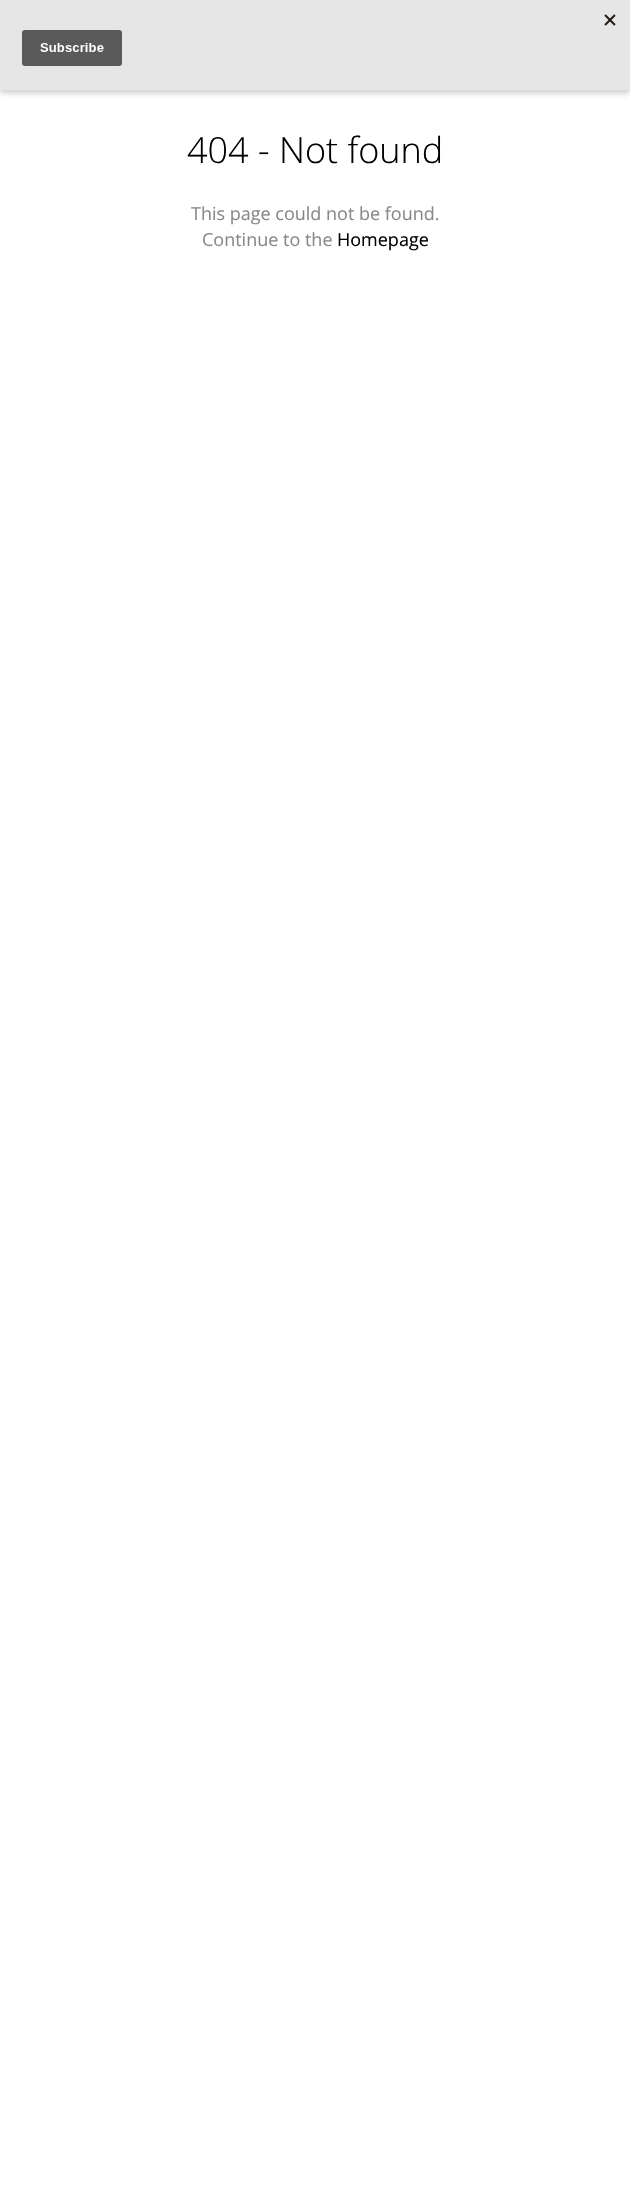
#include "include/core/SkBlurTypes.h"
#include "include/core/SkCanvas.h"
#include "include/core/SkData.h"
#include "include/core/SkFont.h"
#include "include/core/SkFontMgr.h"
#include "include/core/SkImage.h"
#include "include/core/SkMaskFilter.h"
#include "include/core/SkPaint.h"
#include "include/core/SkPathBuilder.h"
#include "include/core/SkTextBlob.h"
#include "include/effects/SkDashPathEffect.h"
#include "include/effects/SkGradientShader.h"
#include "include/utils/SkParsePath.h"

extern sk_sp<SkFontMgr> fontMgr;

static SkFont font(const char* family, int weight, float size, bool italic = false) {
    SkFontStyle style(weight, SkFontStyle::kNormal_Width,
        italic ? SkFontStyle::kItalic_Slant : SkFontStyle::kUpright_Slant);
    SkFont result(fontMgr->matchFamilyStyle(family, style), size);
    result.setSubpixel(true);
    return result;
}

static void drawLabel(SkCanvas* canvas, const char* s, float x, float y, const SkFont& font, SkColor color) {
    SkPaint ink(SkColor4f::FromColor(color));
    ink.setAntiAlias(true);
    canvas->drawString(s, x, y, font, ink);
}

static void drawPhoto(SkCanvas* canvas, const char* path, float x, float y, float w, float h) {
    auto image = SkImages::DeferredFromEncodedData(SkData::MakeFromFileName(path));
    canvas->drawImageRect(image, SkRect::MakeXYWH(x, y, w, h), SkSamplingOptions());
}

void draw(SkCanvas* canvas) {
    SkPaint paint;
    paint.setAntiAlias(true);
    canvas->clear(0xFFFFFFFF);
    paint.setColor(0x33000000);
    paint.setMaskFilter(SkMaskFilter::MakeBlur(kNormal_SkBlurStyle, 3));
    canvas->drawRect(SkRect::MakeXYWH(0, 3, 630, 90), paint);
    paint.setMaskFilter(nullptr);
    drawPhoto(canvas, "assets/img1.png", 0, 0, 630, 90);
    SkFont font1 = font("Open Sans", 300, 36);
    drawLabel(canvas, "404 - Not found", 187, 163, font1, 0xFF000000);
    SkFont font2 = font("Open Sans", 400, 18);
    drawLabel(canvas, "This page could not be found.", 191, 220, font2, 0xFF888888);
    drawLabel(canvas, "Continue to the", 202, 246, font2, 0xFF888888);
    drawLabel(canvas, "Homepage", 337, 246, font2, 0xFF000000);
}
